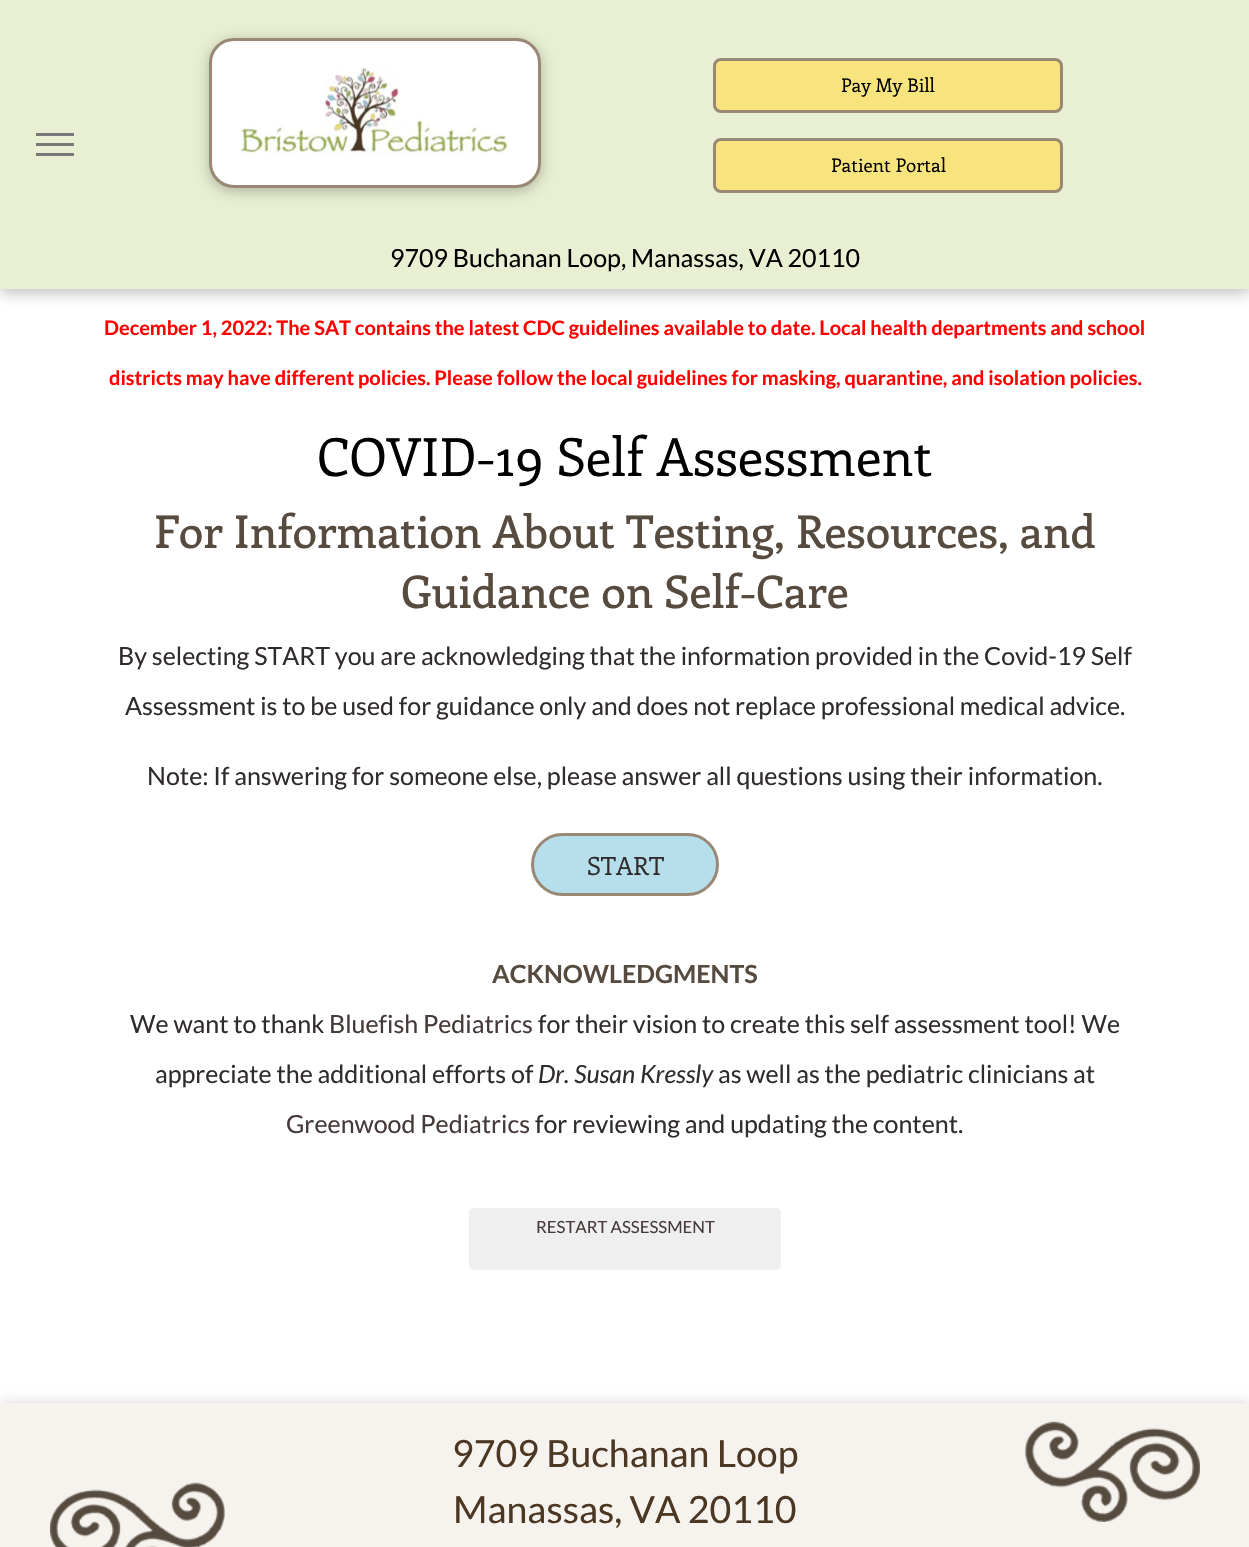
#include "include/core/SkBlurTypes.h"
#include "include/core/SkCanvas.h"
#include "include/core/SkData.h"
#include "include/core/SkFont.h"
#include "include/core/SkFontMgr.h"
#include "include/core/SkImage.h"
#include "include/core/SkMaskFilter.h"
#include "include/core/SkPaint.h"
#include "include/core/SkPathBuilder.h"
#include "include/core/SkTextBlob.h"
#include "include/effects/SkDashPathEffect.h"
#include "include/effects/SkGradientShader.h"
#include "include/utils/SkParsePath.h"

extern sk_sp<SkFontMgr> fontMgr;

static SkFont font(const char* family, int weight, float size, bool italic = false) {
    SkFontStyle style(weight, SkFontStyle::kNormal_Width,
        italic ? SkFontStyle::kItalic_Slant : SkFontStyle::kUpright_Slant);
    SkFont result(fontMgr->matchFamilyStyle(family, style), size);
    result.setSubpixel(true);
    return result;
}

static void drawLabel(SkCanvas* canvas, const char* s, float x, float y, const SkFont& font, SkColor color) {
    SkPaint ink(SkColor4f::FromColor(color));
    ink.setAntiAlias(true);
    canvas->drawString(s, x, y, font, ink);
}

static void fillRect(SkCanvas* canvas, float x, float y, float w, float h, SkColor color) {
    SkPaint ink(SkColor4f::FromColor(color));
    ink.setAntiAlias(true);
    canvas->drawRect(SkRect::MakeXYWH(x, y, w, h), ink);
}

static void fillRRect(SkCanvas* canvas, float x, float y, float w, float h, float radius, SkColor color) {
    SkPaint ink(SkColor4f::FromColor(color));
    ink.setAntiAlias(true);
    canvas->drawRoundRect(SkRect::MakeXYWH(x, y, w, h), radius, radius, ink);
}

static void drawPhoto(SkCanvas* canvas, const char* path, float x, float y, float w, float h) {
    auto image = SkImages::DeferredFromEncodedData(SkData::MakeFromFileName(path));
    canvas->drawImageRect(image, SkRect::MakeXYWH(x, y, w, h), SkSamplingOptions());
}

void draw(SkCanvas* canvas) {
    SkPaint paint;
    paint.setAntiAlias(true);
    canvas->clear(0xFFFFFFFF);
    paint.setColor(0x40000000);
    paint.setMaskFilter(SkMaskFilter::MakeBlur(kNormal_SkBlurStyle, 7));
    canvas->drawRect(SkRect::MakeXYWH(0, 4, 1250, 289), paint);
    paint.setMaskFilter(nullptr);
    fillRect(canvas, 0, 0, 1249, 289, 0xFFE8EFD2);
    fillRect(canvas, 36, 133, 38, 3, 0xFF787878);
    fillRect(canvas, 36, 143, 38, 3, 0xFF787878);
    fillRect(canvas, 36, 153, 38, 3, 0xFF787878);
    paint.setMaskFilter(SkMaskFilter::MakeBlur(kNormal_SkBlurStyle, 7));
    canvas->drawRoundRect(SkRect::MakeXYWH(209, 41, 332, 150), 25, 25, paint);
    paint.setMaskFilter(nullptr);
    paint.setColor(0xFFFFFFFF);
    canvas->drawRoundRect(SkRect::MakeXYWH(210.5f, 39.5f, 329, 147), 23.5f, 23.5f, paint);
    paint.setStroke(true);
    paint.setStrokeWidth(3);
    paint.setColor(0xFF998875);
    canvas->drawRoundRect(SkRect::MakeXYWH(210.5f, 39.5f, 329, 147), 23.5f, 23.5f, paint);
    drawPhoto(canvas, "assets/img1.png", 240, 67, 269, 87);
    paint.setStroke(false);
    paint.setColor(0xFFF8E47C);
    canvas->drawRoundRect(SkRect::MakeXYWH(714.5f, 59.5f, 347, 52), 6.5f, 6.5f, paint);
    paint.setStroke(true);
    paint.setColor(0xFF998875);
    canvas->drawRoundRect(SkRect::MakeXYWH(714.5f, 59.5f, 347, 52), 6.5f, 6.5f, paint);
    SkFont font1 = font("Enriqueta", 400, 18.75f);
    drawLabel(canvas, "Pay My Bill", 841, 92, font1, 0xFF000000);
    paint.setStroke(false);
    paint.setColor(0xFFF8E47C);
    canvas->drawRoundRect(SkRect::MakeXYWH(714.5f, 139.5f, 347, 52), 6.5f, 6.5f, paint);
    paint.setStroke(true);
    paint.setColor(0xFF998875);
    canvas->drawRoundRect(SkRect::MakeXYWH(714.5f, 139.5f, 347, 52), 6.5f, 6.5f, paint);
    drawLabel(canvas, "Patient Portal", 831, 172, font1, 0xFF000000);
    SkFont font2 = font("Lato", 400, 25);
    drawLabel(canvas, "9709 Buchanan Loop, Manassas, VA 20110", 390, 267, font2, 0xFF000000);
    SkFont font3 = font("Lato", 700, 20);
    drawLabel(canvas, "December 1, 2022: The SAT contains the latest CDC guidelines available to date. Local health departments and school", 104, 335, font3, 0xFFFF0000);
    drawLabel(canvas, "districts may have different policies. Please follow the local guidelines for masking, quarantine, and isolation policies.", 109, 385, font3, 0xFFFF0000);
    SkFont font4 = font("Enriqueta", 400, 52.5f);
    drawLabel(canvas, "COVID-19 Self Assessment", 317, 476, font4, 0xFF000000);
    SkFont font5 = font("Enriqueta", 500, 45);
    drawLabel(canvas, "For Information About Testing, Resources, and", 154, 548, font5, 0xFF564B3E);
    drawLabel(canvas, "Guidance on Self-Care", 401, 608, font5, 0xFF564B3E);
    drawLabel(canvas, "By selecting START you are acknowledging that the information provided in the Covid-19 Self", 118, 665, font2, 0xFF312C2C);
    drawLabel(canvas, "Assessment is to be used for guidance only and does not replace professional medical advice.", 125, 715, font2, 0xFF312C2C);
    drawLabel(canvas, "Note: If answering for someone else, please answer all questions using their information.", 147, 785, font2, 0xFF312C2C);
    paint.setStroke(false);
    paint.setColor(0xFFB6DFEB);
    canvas->drawRoundRect(SkRect::MakeXYWH(532.5f, 834.5f, 185, 60), 30, 30, paint);
    paint.setStroke(true);
    paint.setColor(0xFF998875);
    canvas->drawRoundRect(SkRect::MakeXYWH(532.5f, 834.5f, 185, 60), 30, 30, paint);
    SkFont font6 = font("Enriqueta", 400, 25);
    drawLabel(canvas, "START", 587, 875, font6, 0xFF312C2C);
    SkFont font7 = font("Lato", 700, 25);
    drawLabel(canvas, "ACKNOWLEDGMENTS", 492, 983, font7, 0xFF564B3E);
    drawLabel(canvas, "We want to thank", 130, 1033, font2, 0xFF312C2C);
    drawLabel(canvas, "Bluefish Pediatrics", 329, 1033, font2, 0xFF463939);
    drawLabel(canvas, "for their vision to create this self assessment tool! We", 538, 1033, font2, 0xFF312C2C);
    drawLabel(canvas, "appreciate the additional efforts of", 155, 1083, font2, 0xFF312C2C);
    SkFont font8 = font("Lato", 400, 25, true);
    drawLabel(canvas, "Dr. Susan Kressly", 538, 1083, font8, 0xFF312C2C);
    drawLabel(canvas, "as well as the pediatric clinicians at", 718, 1083, font2, 0xFF312C2C);
    drawLabel(canvas, "Greenwood Pediatrics", 286, 1133, font2, 0xFF463939);
    drawLabel(canvas, "for reviewing and updating the content.", 535, 1133, font2, 0xFF312C2C);
    fillRRect(canvas, 469, 1208, 312, 62, 5, 0xFFEFEFEF);
    SkFont font9 = font("Lato", 400, 16.75f);
    drawLabel(canvas, "RESTART ASSESSMENT", 536, 1233, font9, 0xFF463939);
    paint.setStroke(false);
    paint.setColor(0x40000000);
    paint.setMaskFilter(SkMaskFilter::MakeBlur(kNormal_SkBlurStyle, 7));
    canvas->drawRect(SkRect::MakeXYWH(0, 1406, 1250, 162), paint);
    paint.setMaskFilter(nullptr);
    fillRect(canvas, 0, 1403, 1249, 144, 0xFFF6F3EF);
    drawPhoto(canvas, "assets/img2.png", 50, 1482, 175, 65);
    SkFont font10 = font("Lato", 400, 37.5f);
    drawLabel(canvas, "9709 Buchanan Loop", 452, 1467, font10, 0xFF4C3723);
    drawLabel(canvas, "Manassas, VA 20110", 453, 1523, font10, 0xFF4C3723);
    drawPhoto(canvas, "assets/img3.png", 1025, 1420, 175, 102);
}
